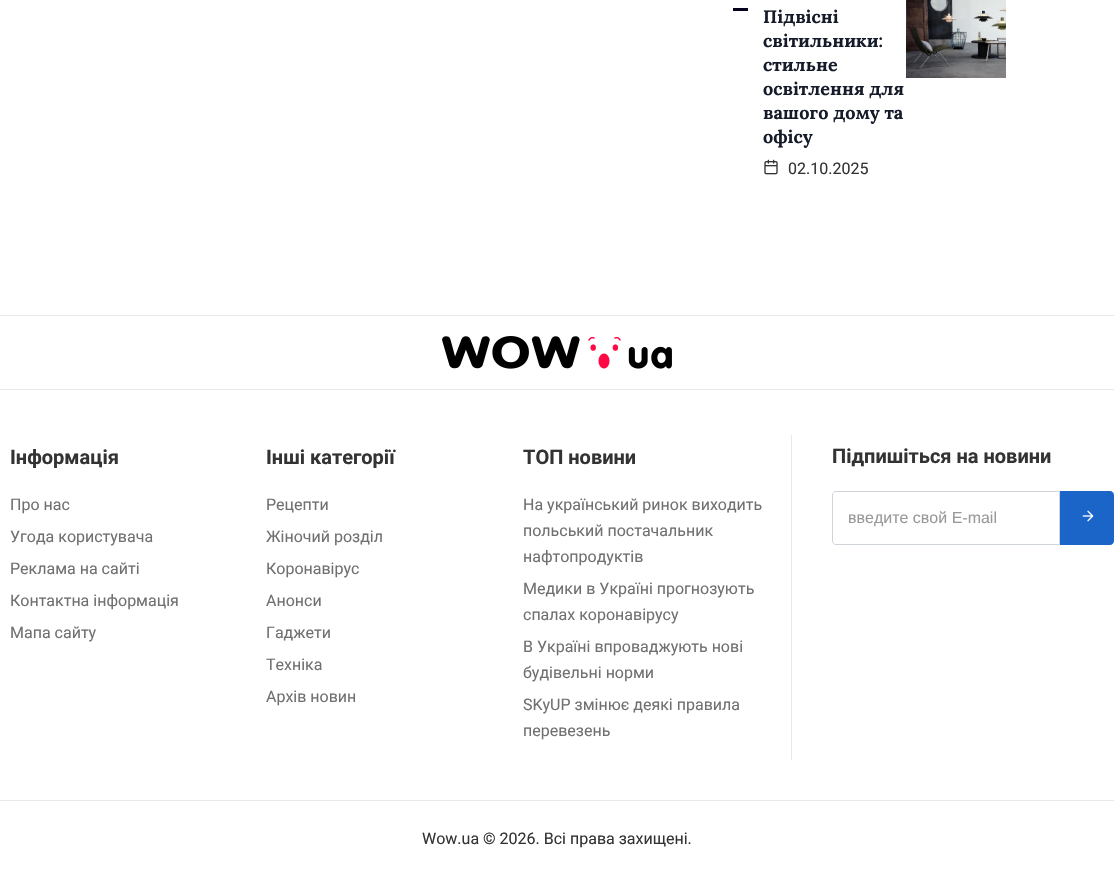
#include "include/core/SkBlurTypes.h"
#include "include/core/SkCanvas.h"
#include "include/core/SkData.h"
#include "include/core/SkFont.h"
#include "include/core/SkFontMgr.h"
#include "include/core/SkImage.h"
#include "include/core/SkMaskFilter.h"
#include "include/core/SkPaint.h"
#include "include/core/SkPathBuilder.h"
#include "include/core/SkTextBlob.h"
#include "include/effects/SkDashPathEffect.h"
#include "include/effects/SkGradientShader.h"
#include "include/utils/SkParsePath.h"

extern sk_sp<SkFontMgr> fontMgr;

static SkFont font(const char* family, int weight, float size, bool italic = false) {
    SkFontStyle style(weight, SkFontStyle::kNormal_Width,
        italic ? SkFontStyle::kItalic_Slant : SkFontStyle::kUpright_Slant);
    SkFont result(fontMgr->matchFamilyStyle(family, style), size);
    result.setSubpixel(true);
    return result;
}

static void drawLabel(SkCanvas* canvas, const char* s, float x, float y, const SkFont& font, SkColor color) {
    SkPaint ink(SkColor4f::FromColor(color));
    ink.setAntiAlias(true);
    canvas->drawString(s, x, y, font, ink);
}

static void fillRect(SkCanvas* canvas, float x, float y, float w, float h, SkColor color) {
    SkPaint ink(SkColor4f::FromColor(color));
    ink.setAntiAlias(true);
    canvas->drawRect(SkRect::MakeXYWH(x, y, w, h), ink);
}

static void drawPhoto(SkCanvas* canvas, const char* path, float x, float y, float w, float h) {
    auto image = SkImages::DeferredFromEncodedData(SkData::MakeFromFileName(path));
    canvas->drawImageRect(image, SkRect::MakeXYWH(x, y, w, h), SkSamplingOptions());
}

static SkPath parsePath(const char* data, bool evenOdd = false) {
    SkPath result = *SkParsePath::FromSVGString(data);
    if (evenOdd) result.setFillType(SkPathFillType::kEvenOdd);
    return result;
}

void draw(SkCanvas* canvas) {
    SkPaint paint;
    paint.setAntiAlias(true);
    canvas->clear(0xFFFFFFFF);
    fillRect(canvas, 733, 8, 15, 3, 0xFF05011D);
    SkFont font1 = font("Lora", 700, 18);
    drawLabel(canvas, "Підвісні", 763, 23, font1, 0xFF161B2A);
    drawLabel(canvas, "світильники:", 763, 47, font1, 0xFF161B2A);
    drawLabel(canvas, "стильне", 763, 71, font1, 0xFF161B2A);
    drawLabel(canvas, "освітлення для", 763, 95, font1, 0xFF161B2A);
    drawLabel(canvas, "вашого дому та", 763, 119, font1, 0xFF161B2A);
    drawLabel(canvas, "офісу", 763, 143, font1, 0xFF161B2A);
    drawPhoto(canvas, "assets/img1.png", 764, 159, 14, 16);
    SkFont font2 = font("Roboto", 400, 16);
    drawLabel(canvas, "02.10.2025", 788, 174, font2, 0xFF333333);
    drawPhoto(canvas, "assets/img2.png", 906, 0, 100, 78);
    fillRect(canvas, 0, 315, 1114, 1, 0xFFE9E9E9);
    fillRect(canvas, 0, 389, 1114, 1, 0xFFE9E9E9);
    drawPhoto(canvas, "assets/img3.png", 442, 336, 230, 33);
    fillRect(canvas, 0, 800, 1114, 1, 0xFFE9E9E9);
    SkFont font3 = font("Roboto", 700, 20);
    drawLabel(canvas, "Інформація", 10, 464, font3, 0xFF333333);
    drawLabel(canvas, "Про нас", 10, 510, font2, 0xFF707070);
    drawLabel(canvas, "Угода користувача", 10, 542, font2, 0xFF707070);
    drawLabel(canvas, "Реклама на сайті", 10, 574, font2, 0xFF707070);
    drawLabel(canvas, "Контактна інформація", 10, 606, font2, 0xFF707070);
    drawLabel(canvas, "Мапа сайту", 10, 638, font2, 0xFF707070);
    drawLabel(canvas, "Інші категорії", 266, 464, font3, 0xFF333333);
    drawLabel(canvas, "Рецепти", 266, 510, font2, 0xFF707070);
    drawLabel(canvas, "Жіночий розділ", 266, 542, font2, 0xFF707070);
    drawLabel(canvas, "Коронавірус", 266, 574, font2, 0xFF707070);
    drawLabel(canvas, "Анонси", 266, 606, font2, 0xFF707070);
    drawLabel(canvas, "Гаджети", 266, 638, font2, 0xFF707070);
    drawLabel(canvas, "Техніка", 266, 670, font2, 0xFF707070);
    drawLabel(canvas, "Архів новин", 266, 702, font2, 0xFF707070);
    fillRect(canvas, 791, 435, 1, 325, 0xFFE9E9E9);
    drawLabel(canvas, "ТОП новини", 523, 464, font3, 0xFF333333);
    drawLabel(canvas, "На український ринок виходить", 523, 510, font2, 0xFF707070);
    drawLabel(canvas, "польський постачальник", 523, 536, font2, 0xFF707070);
    drawLabel(canvas, "нафтопродуктів", 523, 562, font2, 0xFF707070);
    drawLabel(canvas, "Медики в Україні прогнозують", 523, 594, font2, 0xFF707070);
    drawLabel(canvas, "спалах коронавірусу", 523, 620, font2, 0xFF707070);
    drawLabel(canvas, "В Україні впроваджують нові", 523, 652, font2, 0xFF707070);
    drawLabel(canvas, "будівельні норми", 523, 678, font2, 0xFF707070);
    drawLabel(canvas, "SKyUP змінює деякі правила", 523, 710, font2, 0xFF707070);
    drawLabel(canvas, "перевезень", 523, 736, font2, 0xFF707070);
    drawLabel(canvas, "Підпишіться на новини", 832, 463, font3, 0xFF333333);
    paint.setStroke(true);
    paint.setStrokeWidth(1);
    paint.setColor(0xFFCED4DA);
    canvas->drawPath(parsePath("M836 491.5H1059.5V544.5H836C834 544.5 832.5 543 832.5 541V495C832.5 493 834 491.5 836 491.5Z"), paint);
    SkFont font4 = font("Liberation Sans", 400, 16);
    drawLabel(canvas, "введите свой E-mail", 848, 523, font4, 0xFF999999);
    paint.setStroke(false);
    paint.setColor(0xFF1B64C8);
    canvas->drawPath(parsePath("M1060 491H1110C1112 491 1114 493 1114 495V541C1114 543 1112 545 1110 545H1060Z"), paint);
    drawPhoto(canvas, "assets/img4.png", 1082, 510, 12, 12);
    drawLabel(canvas, "Wow.ua © 2026. Всі права захищені.", 422, 844, font2, 0xFF333333);
}
